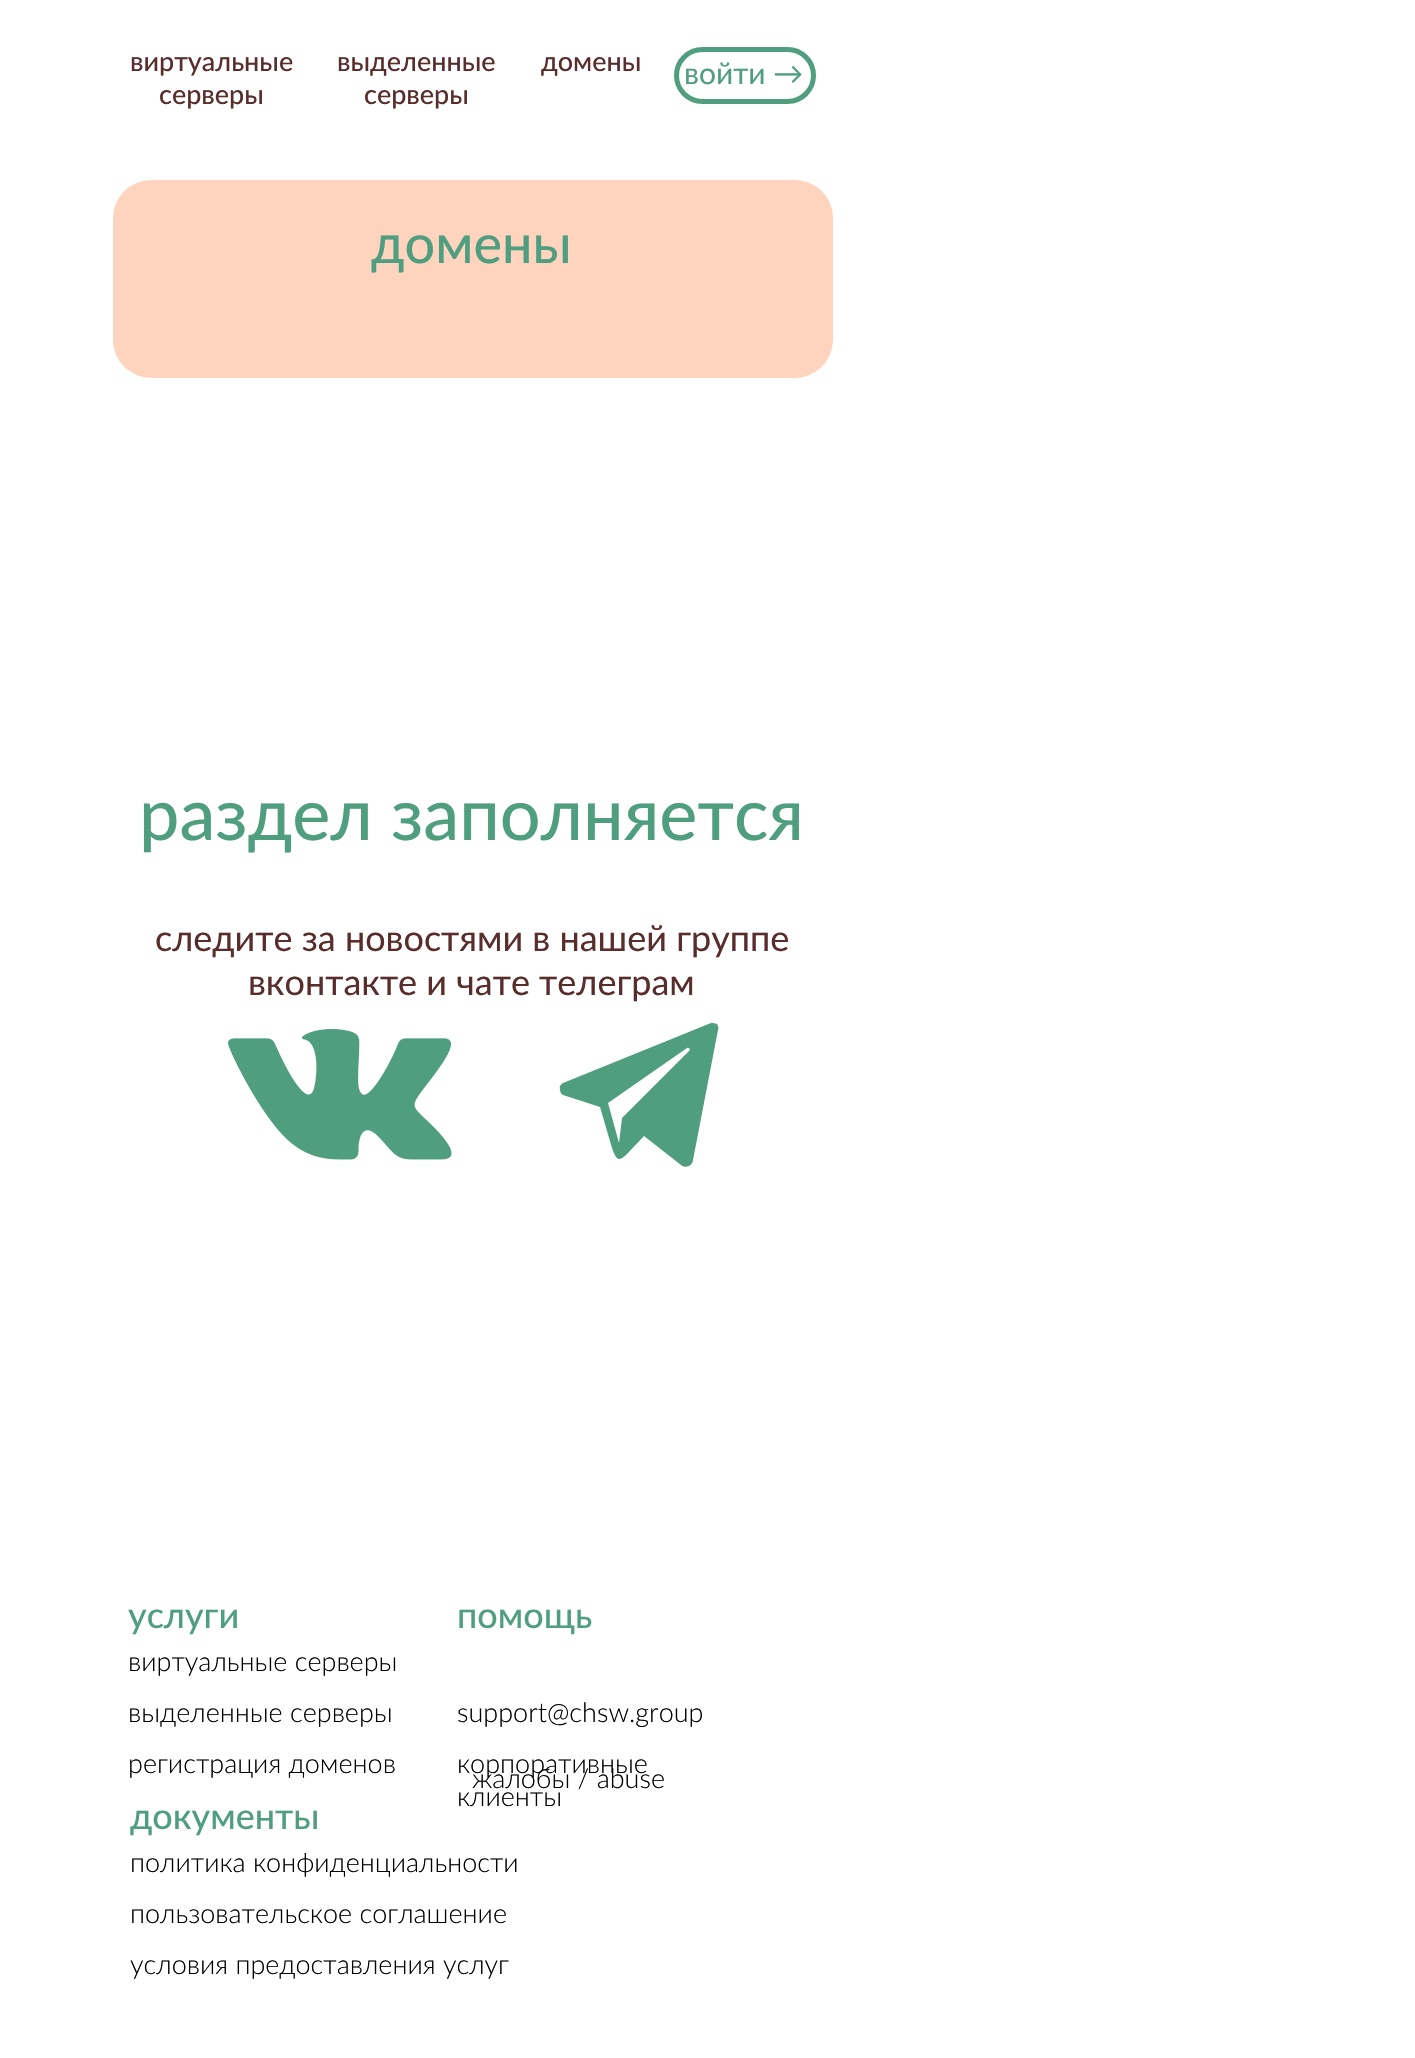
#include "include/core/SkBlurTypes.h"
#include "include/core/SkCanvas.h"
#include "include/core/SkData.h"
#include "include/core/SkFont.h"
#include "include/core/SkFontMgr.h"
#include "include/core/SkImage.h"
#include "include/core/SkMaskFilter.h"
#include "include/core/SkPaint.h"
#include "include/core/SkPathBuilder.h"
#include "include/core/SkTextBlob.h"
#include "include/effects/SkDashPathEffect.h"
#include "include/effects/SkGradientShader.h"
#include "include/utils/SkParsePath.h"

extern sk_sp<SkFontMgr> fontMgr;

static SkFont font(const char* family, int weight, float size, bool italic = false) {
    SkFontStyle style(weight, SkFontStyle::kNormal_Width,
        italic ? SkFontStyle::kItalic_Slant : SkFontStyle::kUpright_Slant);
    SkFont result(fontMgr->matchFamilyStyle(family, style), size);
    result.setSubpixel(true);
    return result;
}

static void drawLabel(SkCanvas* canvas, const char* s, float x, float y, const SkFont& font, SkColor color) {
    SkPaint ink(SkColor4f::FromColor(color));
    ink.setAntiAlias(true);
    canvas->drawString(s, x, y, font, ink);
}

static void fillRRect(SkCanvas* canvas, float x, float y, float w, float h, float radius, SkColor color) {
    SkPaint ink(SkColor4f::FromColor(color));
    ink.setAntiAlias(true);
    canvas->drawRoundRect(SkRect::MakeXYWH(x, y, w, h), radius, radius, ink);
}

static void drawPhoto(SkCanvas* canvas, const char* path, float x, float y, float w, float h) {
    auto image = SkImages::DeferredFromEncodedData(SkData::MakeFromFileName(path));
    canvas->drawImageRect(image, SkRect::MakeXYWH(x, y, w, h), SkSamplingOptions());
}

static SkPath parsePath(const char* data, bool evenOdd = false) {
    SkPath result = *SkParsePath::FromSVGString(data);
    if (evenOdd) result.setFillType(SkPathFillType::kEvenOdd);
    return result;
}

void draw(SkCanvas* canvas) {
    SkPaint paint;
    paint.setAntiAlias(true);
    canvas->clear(0xFFFFFFFF);
    SkFont font1 = font("Lato", 500, 27);
    drawLabel(canvas, "виртуальные", 130, 71, font1, 0xFF5A2D2D);
    drawLabel(canvas, "серверы", 159, 104, font1, 0xFF5A2D2D);
    drawLabel(canvas, "выделенные", 337, 71, font1, 0xFF5A2D2D);
    drawLabel(canvas, "серверы", 364, 104, font1, 0xFF5A2D2D);
    drawLabel(canvas, "домены", 541, 71, font1, 0xFF5A2D2D);
    paint.setStroke(true);
    paint.setStrokeWidth(5);
    paint.setColor(0xFF4F9E80);
    canvas->drawRoundRect(SkRect::MakeXYWH(676.5f, 49.5f, 137, 52), 26, 26, paint);
    SkFont font2 = font("Lato", 400, 30);
    drawLabel(canvas, "войти →", 684, 84, font2, 0xFF4F9E80);
    fillRRect(canvas, 113, 180, 720, 198, 38, 0xFFFFD4BF);
    SkFont font3 = font("Lato", 500, 54);
    drawLabel(canvas, "домены", 371, 263, font3, 0xFF4F9E80);
    SkFont font4 = font("Lato", 500, 72);
    drawLabel(canvas, "раздел заполняется", 139, 840, font4, 0xFF4F9E80);
    SkFont font5 = font("Lato", 400, 36);
    drawLabel(canvas, "следите за новостями в нашей группе", 155, 951, font5, 0xFF5A2D2D);
    drawLabel(canvas, "вконтакте и чате телеграм", 248, 995, font5, 0xFF5A2D2D);
    drawPhoto(canvas, "assets/img1.png", 228, 1029, 224, 131);
    paint.setStroke(false);
    canvas->drawPath(parsePath("M681 1165C683 1167 686 1167 689 1166C691 1165 693 1163 693 1160L718 1030C719 1028 718 1026 717 1024C715 1023 713 1023 711 1023L563 1083C561 1084 559 1087 560 1089C560 1092 561 1094 563 1095L600 1107L612 1148C616 1159 618 1163 627 1154L644 1136ZM608 1103L619 1143L622 1118L689 1051C691 1050 689 1047 687 1048Z", true), paint);
    SkFont font6 = font("Lato", 500, 36);
    drawLabel(canvas, "услуги", 128, 1628, font6, 0xFF4F9E80);
    drawLabel(canvas, "помощь", 457, 1628, font6, 0xFF4F9E80);
    SkFont font7 = font("Lato", 300, 27);
    drawLabel(canvas, "виртуальные серверы", 128, 1671, font7, 0xFF000000);
    drawLabel(canvas, "выделенные серверы", 128, 1722, font7, 0xFF000000);
    drawLabel(canvas, "support@chsw.group", 457, 1722, font7, 0xFF000000);
    drawLabel(canvas, "регистрация доменов", 128, 1773, font7, 0xFF000000);
    drawLabel(canvas, "жалобы / abuse", 472, 1788, font7, 0xFF000000);
    drawLabel(canvas, "корпоративные", 457, 1773, font7, 0xFF000000);
    drawLabel(canvas, "клиенты", 457, 1806, font7, 0xFF000000);
    drawLabel(canvas, "документы", 130, 1829, font6, 0xFF4F9E80);
    drawLabel(canvas, "политика конфиденциальности", 130, 1872, font7, 0xFF000000);
    drawLabel(canvas, "пользовательское соглашение", 130, 1923, font7, 0xFF000000);
    drawLabel(canvas, "условия предоставления услуг", 130, 1974, font7, 0xFF000000);
}
